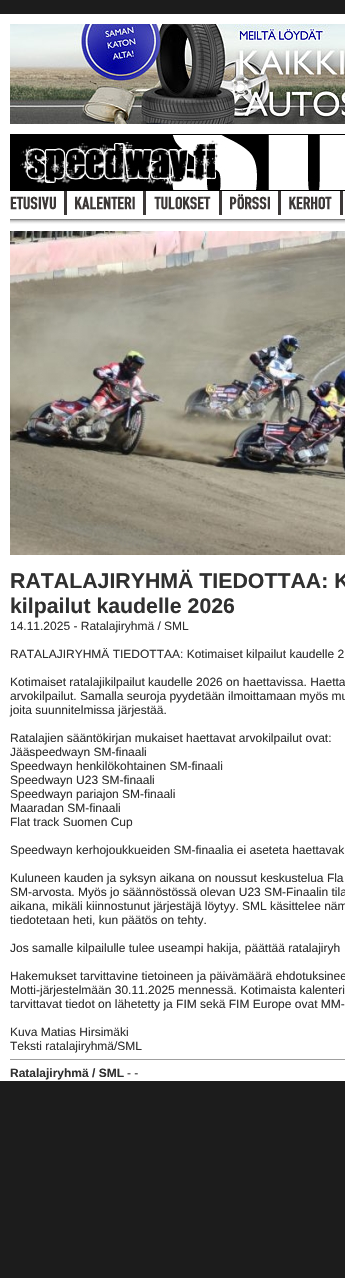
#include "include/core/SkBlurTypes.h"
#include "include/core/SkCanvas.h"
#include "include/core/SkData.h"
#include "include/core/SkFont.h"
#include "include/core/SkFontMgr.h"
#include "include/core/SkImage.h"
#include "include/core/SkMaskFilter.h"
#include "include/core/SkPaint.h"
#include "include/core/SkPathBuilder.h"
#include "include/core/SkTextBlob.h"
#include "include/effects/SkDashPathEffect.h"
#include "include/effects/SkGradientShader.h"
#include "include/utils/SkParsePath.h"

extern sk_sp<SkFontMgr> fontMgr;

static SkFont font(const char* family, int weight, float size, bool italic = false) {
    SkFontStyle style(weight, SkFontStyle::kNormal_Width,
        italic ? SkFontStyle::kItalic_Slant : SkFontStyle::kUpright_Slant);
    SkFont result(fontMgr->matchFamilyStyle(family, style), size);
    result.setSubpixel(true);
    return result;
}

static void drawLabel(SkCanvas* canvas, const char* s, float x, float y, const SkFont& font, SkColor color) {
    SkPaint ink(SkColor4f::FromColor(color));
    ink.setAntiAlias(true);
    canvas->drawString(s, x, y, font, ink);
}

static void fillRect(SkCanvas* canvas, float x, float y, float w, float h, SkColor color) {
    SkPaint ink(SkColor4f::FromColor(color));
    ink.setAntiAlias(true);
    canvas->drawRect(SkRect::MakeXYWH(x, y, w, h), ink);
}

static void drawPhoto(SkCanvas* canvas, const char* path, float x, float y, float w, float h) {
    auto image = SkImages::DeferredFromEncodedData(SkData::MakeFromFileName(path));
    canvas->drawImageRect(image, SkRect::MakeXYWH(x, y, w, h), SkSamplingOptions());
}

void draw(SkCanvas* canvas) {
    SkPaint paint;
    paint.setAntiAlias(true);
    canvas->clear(0xFF1C1C1C);
    fillRect(canvas, 0, 14, 345, 10, 0xFFFFFFFF);
    fillRect(canvas, 0, 24, 10, 100, 0xFFFFFFFF);
    drawPhoto(canvas, "assets/img1.png", 10, 24, 335, 100);
    fillRect(canvas, 0, 124, 345, 10, 0xFFFFFFFF);
    fillRect(canvas, 0, 134, 10, 947, 0xFFFFFFFF);
    drawPhoto(canvas, "assets/img2.png", 10, 134, 335, 57);
    fillRect(canvas, 10, 191, 335, 28, 0xFFFFFFFF);
    drawPhoto(canvas, "assets/img3.png", 10, 196, 46, 14);
    fillRect(canvas, 64, 191, 3, 24, 0xFF3C3837);
    drawPhoto(canvas, "assets/img4.png", 75, 196, 60, 14);
    fillRect(canvas, 143, 191, 3, 24, 0xFF3C3837);
    drawPhoto(canvas, "assets/img5.png", 154, 196, 57, 14);
    fillRect(canvas, 219, 191, 3, 24, 0xFF3C3837);
    drawPhoto(canvas, "assets/img6.png", 230, 194, 40, 16);
    fillRect(canvas, 278, 191, 3, 24, 0xFF3C3837);
    drawPhoto(canvas, "assets/img7.png", 289, 196, 43, 14);
    fillRect(canvas, 340, 191, 3, 24, 0xFF3C3837);
    fillRect(canvas, 10, 224, 335, 7, 0xFFFFFFFF);
    drawPhoto(canvas, "assets/img8.png", 10, 219, 335, 5);
    fillRect(canvas, 10, 555, 335, 526, 0xFFFFFFFF);
    drawPhoto(canvas, "assets/img9.png", 10, 231, 335, 324);
    SkFont font1 = font("Liberation Sans", 700, 21.3f);
    drawLabel(canvas, "RATALAJIRYHMÄ TIEDOTTAA: K", 10, 588, font1, 0xFF303030);
    drawLabel(canvas, "kilpailut kaudelle 2026", 10, 613, font1, 0xFF303030);
    SkFont font2 = font("Liberation Sans", 400, 12);
    drawLabel(canvas, "14.11.2025 - Ratalajiryhmä / SML", 10, 630, font2, 0xFF303030);
    drawLabel(canvas, "RATALAJIRYHMÄ TIEDOTTAA: Kotimaiset kilpailut kaudelle 2", 10, 658, font2, 0xFF303030);
    drawLabel(canvas, "Kotimaiset ratalajikilpailut kaudelle 2026 on haettavissa. Haetta", 10, 686, font2, 0xFF303030);
    drawLabel(canvas, "arvokilpailut. Samalla seuroja pyydetään ilmoittamaan myös mu", 10, 700, font2, 0xFF303030);
    drawLabel(canvas, "joita suunnitelmissa järjestää.", 10, 714, font2, 0xFF303030);
    drawLabel(canvas, "Ratalajien sääntökirjan mukaiset haettavat arvokilpailut ovat:", 10, 742, font2, 0xFF303030);
    drawLabel(canvas, "Jääspeedwayn SM-finaali", 10, 756, font2, 0xFF303030);
    drawLabel(canvas, "Speedwayn henkilökohtainen SM-finaali", 10, 770, font2, 0xFF303030);
    drawLabel(canvas, "Speedwayn U23 SM-finaali", 10, 784, font2, 0xFF303030);
    drawLabel(canvas, "Speedwayn pariajon SM-finaali", 10, 798, font2, 0xFF303030);
    drawLabel(canvas, "Maaradan SM-finaali", 10, 812, font2, 0xFF303030);
    drawLabel(canvas, "Flat track Suomen Cup", 10, 826, font2, 0xFF303030);
    drawLabel(canvas, "Speedwayn kerhojoukkueiden SM-finaalia ei aseteta haettavak", 10, 854, font2, 0xFF303030);
    drawLabel(canvas, "Kuluneen kauden ja syksyn aikana on noussut keskustelua Fla", 10, 882, font2, 0xFF303030);
    drawLabel(canvas, "SM-arvosta. Myös jo säännöstössä olevan U23 SM-Finaalin tila", 10, 896, font2, 0xFF303030);
    drawLabel(canvas, "aikana, mikäli kiinnostunut järjestäjä löytyy. SML käsittelee näm", 10, 910, font2, 0xFF303030);
    drawLabel(canvas, "tiedotetaan heti, kun päätös on tehty.", 10, 924, font2, 0xFF303030);
    drawLabel(canvas, "Jos samalle kilpailulle tulee useampi hakija, päättää ratalajiryh", 10, 952, font2, 0xFF303030);
    drawLabel(canvas, "Hakemukset tarvittavine tietoineen ja päivämäärä ehdotuksinee", 10, 980, font2, 0xFF303030);
    drawLabel(canvas, "Motti-järjestelmään 30.11.2025 mennessä. Kotimaista kalenteri", 10, 994, font2, 0xFF303030);
    drawLabel(canvas, "tarvittavat tiedot on lähetetty ja FIM sekä FIM Europe ovat MM-", 10, 1008, font2, 0xFF303030);
    drawLabel(canvas, "Kuva Matias Hirsimäki", 10, 1036, font2, 0xFF303030);
    drawLabel(canvas, "Teksti ratalajiryhmä/SML", 10, 1050, font2, 0xFF303030);
    fillRect(canvas, 10, 1059, 335, 1, 0xFF9F9F9F);
    SkFont font3 = font("Liberation Sans", 700, 12);
    drawLabel(canvas, "Ratalajiryhmä / SML", 10, 1077, font3, 0xFF303030);
    drawLabel(canvas, "- -", 127, 1077, font2, 0xFF303030);
}
